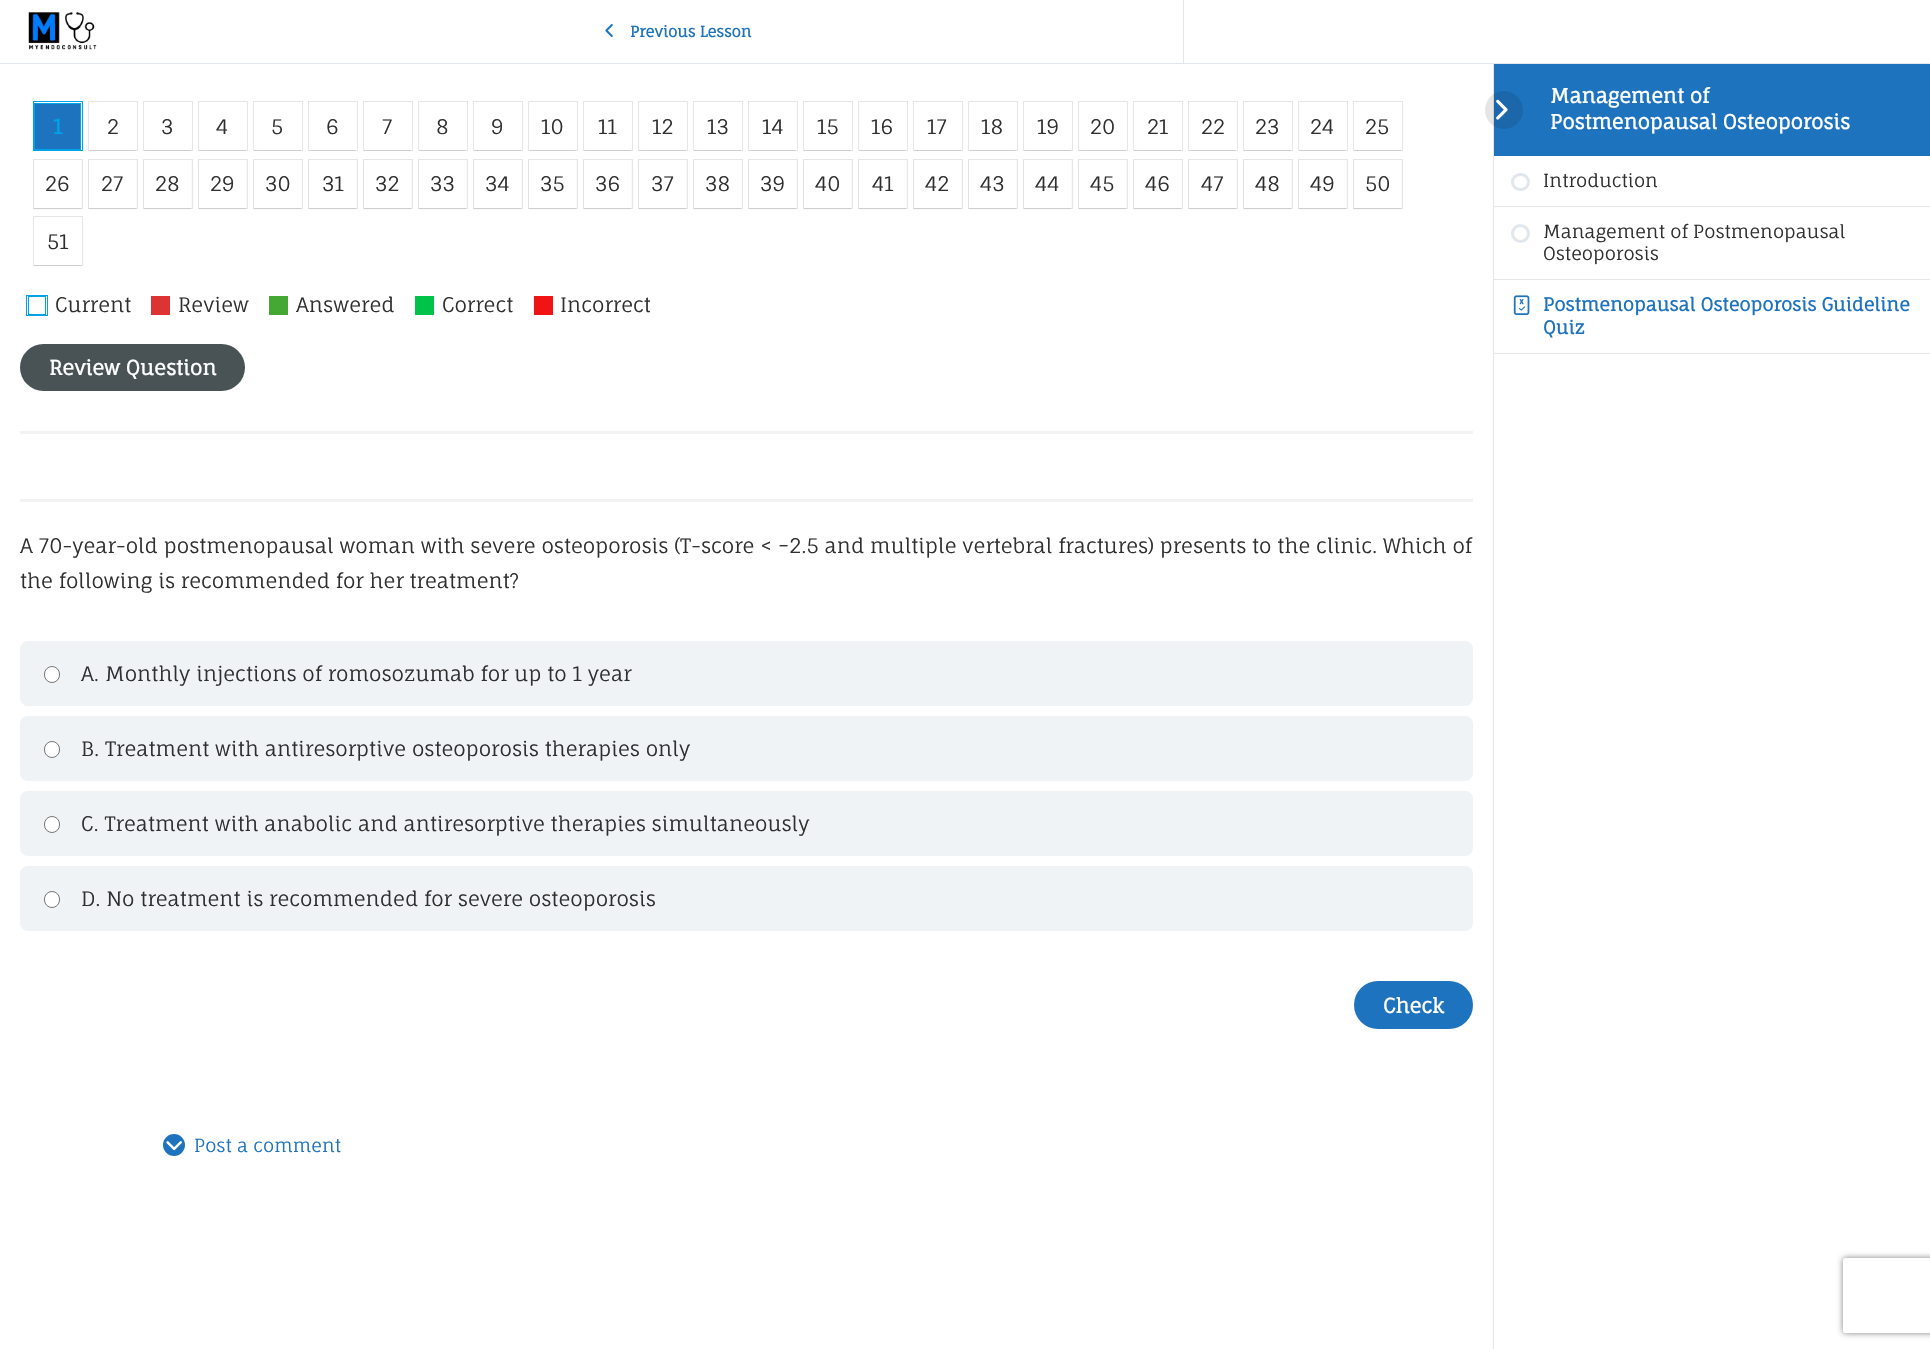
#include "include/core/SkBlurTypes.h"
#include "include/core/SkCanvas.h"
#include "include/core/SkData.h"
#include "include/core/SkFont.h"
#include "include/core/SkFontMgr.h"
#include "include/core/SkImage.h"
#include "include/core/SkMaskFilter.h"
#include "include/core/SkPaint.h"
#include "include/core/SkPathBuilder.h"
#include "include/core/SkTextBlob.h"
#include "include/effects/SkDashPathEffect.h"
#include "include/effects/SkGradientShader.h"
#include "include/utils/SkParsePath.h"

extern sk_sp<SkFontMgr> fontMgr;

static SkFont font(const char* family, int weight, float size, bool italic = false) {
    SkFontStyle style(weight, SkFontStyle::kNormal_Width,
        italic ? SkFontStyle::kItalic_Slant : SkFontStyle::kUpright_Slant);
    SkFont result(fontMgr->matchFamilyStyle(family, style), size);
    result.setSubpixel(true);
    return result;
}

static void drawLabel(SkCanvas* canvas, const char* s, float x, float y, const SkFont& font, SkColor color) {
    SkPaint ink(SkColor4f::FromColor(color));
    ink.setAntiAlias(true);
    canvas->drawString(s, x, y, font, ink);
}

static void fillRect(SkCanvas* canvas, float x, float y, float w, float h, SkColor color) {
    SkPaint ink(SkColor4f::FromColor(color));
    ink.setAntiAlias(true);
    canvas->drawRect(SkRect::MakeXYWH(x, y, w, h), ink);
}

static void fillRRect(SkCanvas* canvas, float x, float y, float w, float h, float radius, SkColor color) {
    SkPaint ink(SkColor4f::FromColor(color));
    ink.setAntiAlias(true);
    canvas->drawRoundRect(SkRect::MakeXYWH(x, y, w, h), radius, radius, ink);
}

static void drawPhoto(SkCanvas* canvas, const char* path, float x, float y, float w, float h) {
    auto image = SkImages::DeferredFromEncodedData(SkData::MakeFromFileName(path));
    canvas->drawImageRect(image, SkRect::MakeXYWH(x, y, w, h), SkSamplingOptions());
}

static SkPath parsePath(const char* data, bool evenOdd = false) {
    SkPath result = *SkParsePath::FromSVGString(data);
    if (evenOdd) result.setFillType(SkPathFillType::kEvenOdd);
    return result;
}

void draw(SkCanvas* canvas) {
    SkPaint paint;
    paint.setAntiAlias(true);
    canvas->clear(0xFFFFFFFF);
    fillRect(canvas, 0, 63, 1930, 1, 0xFFE2E7ED);
    drawPhoto(canvas, "assets/img1.png", 28, 12, 69, 38);
    fillRect(canvas, 1183, 0, 1, 64, 0xFFE2E7ED);
    drawPhoto(canvas, "assets/img2.png", 605, 24, 8, 13);
    SkFont font1 = font("Fauna One", 700, 15);
    drawLabel(canvas, "Previous Lesson", 630, 37, font1, 0xFF1E73BE);
    fillRect(canvas, 20, 431, 1453, 3, 0xFFF2F2F2);
    paint.setStroke(true);
    paint.setStrokeWidth(1);
    paint.setColor(0xFF00A2E8);
    canvas->drawRect(SkRect::MakeXYWH(33.5f, 101.5f, 49, 49), paint);
    paint.setStroke(false);
    paint.setColor(0xFF1E73BE);
    canvas->drawRect(SkRect::MakeXYWH(34.5f, 103.5f, 46, 46), paint);
    paint.setStroke(true);
    paint.setColor(0xFF00A2E8);
    canvas->drawRect(SkRect::MakeXYWH(34.5f, 103.5f, 46, 46), paint);
    SkFont font2 = font("Fauna One", 700, 20);
    drawLabel(canvas, "1", 53, 134, font2, 0xFF00A2E8);
    paint.setColor(0xFFE6E6E6);
    canvas->drawRect(SkRect::MakeXYWH(88.5f, 101.5f, 49, 49), paint);
    canvas->save();
    canvas->clipRect(SkRect::MakeXYWH(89, 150, 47, 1));
    paint.setStroke(false);
    paint.setColor(0x1A000000);
    paint.setMaskFilter(SkMaskFilter::MakeBlur(kNormal_SkBlurStyle, 0.5f));
    canvas->drawRect(SkRect::MakeXYWH(89, 104, 47, 47), paint);
    paint.setMaskFilter(nullptr);
    canvas->restore();
    SkFont font3 = font("Fauna One", 400, 20);
    drawLabel(canvas, "2", 107, 134, font3, 0xFF2F2F2F);
    paint.setStroke(true);
    paint.setColor(0xFFE6E6E6);
    canvas->drawRect(SkRect::MakeXYWH(143.5f, 101.5f, 49, 49), paint);
    canvas->save();
    canvas->clipRect(SkRect::MakeXYWH(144, 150, 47, 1));
    paint.setStroke(false);
    paint.setColor(0x1A000000);
    paint.setMaskFilter(SkMaskFilter::MakeBlur(kNormal_SkBlurStyle, 0.5f));
    canvas->drawRect(SkRect::MakeXYWH(144, 104, 47, 47), paint);
    paint.setMaskFilter(nullptr);
    canvas->restore();
    drawLabel(canvas, "3", 161, 134, font3, 0xFF2F2F2F);
    paint.setStroke(true);
    paint.setColor(0xFFE6E6E6);
    canvas->drawRect(SkRect::MakeXYWH(198.5f, 101.5f, 49, 49), paint);
    canvas->save();
    canvas->clipRect(SkRect::MakeXYWH(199, 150, 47, 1));
    paint.setStroke(false);
    paint.setColor(0x1A000000);
    paint.setMaskFilter(SkMaskFilter::MakeBlur(kNormal_SkBlurStyle, 0.5f));
    canvas->drawRect(SkRect::MakeXYWH(199, 104, 47, 47), paint);
    paint.setMaskFilter(nullptr);
    canvas->restore();
    drawLabel(canvas, "4", 216, 134, font3, 0xFF2F2F2F);
    paint.setStroke(true);
    paint.setColor(0xFFE6E6E6);
    canvas->drawRect(SkRect::MakeXYWH(253.5f, 101.5f, 49, 49), paint);
    canvas->save();
    canvas->clipRect(SkRect::MakeXYWH(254, 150, 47, 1));
    paint.setStroke(false);
    paint.setColor(0x1A000000);
    paint.setMaskFilter(SkMaskFilter::MakeBlur(kNormal_SkBlurStyle, 0.5f));
    canvas->drawRect(SkRect::MakeXYWH(254, 104, 47, 47), paint);
    paint.setMaskFilter(nullptr);
    canvas->restore();
    drawLabel(canvas, "5", 271, 134, font3, 0xFF2F2F2F);
    paint.setStroke(true);
    paint.setColor(0xFFE6E6E6);
    canvas->drawRect(SkRect::MakeXYWH(308.5f, 101.5f, 49, 49), paint);
    canvas->save();
    canvas->clipRect(SkRect::MakeXYWH(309, 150, 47, 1));
    paint.setStroke(false);
    paint.setColor(0x1A000000);
    paint.setMaskFilter(SkMaskFilter::MakeBlur(kNormal_SkBlurStyle, 0.5f));
    canvas->drawRect(SkRect::MakeXYWH(309, 104, 47, 47), paint);
    paint.setMaskFilter(nullptr);
    canvas->restore();
    drawLabel(canvas, "6", 326, 134, font3, 0xFF2F2F2F);
    paint.setStroke(true);
    paint.setColor(0xFFE6E6E6);
    canvas->drawRect(SkRect::MakeXYWH(363.5f, 101.5f, 49, 49), paint);
    canvas->save();
    canvas->clipRect(SkRect::MakeXYWH(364, 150, 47, 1));
    paint.setStroke(false);
    paint.setColor(0x1A000000);
    paint.setMaskFilter(SkMaskFilter::MakeBlur(kNormal_SkBlurStyle, 0.5f));
    canvas->drawRect(SkRect::MakeXYWH(364, 104, 47, 47), paint);
    paint.setMaskFilter(nullptr);
    canvas->restore();
    drawLabel(canvas, "7", 382, 134, font3, 0xFF2F2F2F);
    paint.setStroke(true);
    paint.setColor(0xFFE6E6E6);
    canvas->drawRect(SkRect::MakeXYWH(418.5f, 101.5f, 49, 49), paint);
    canvas->save();
    canvas->clipRect(SkRect::MakeXYWH(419, 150, 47, 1));
    paint.setStroke(false);
    paint.setColor(0x1A000000);
    paint.setMaskFilter(SkMaskFilter::MakeBlur(kNormal_SkBlurStyle, 0.5f));
    canvas->drawRect(SkRect::MakeXYWH(419, 104, 47, 47), paint);
    paint.setMaskFilter(nullptr);
    canvas->restore();
    drawLabel(canvas, "8", 436, 134, font3, 0xFF2F2F2F);
    paint.setStroke(true);
    paint.setColor(0xFFE6E6E6);
    canvas->drawRect(SkRect::MakeXYWH(473.5f, 101.5f, 49, 49), paint);
    canvas->save();
    canvas->clipRect(SkRect::MakeXYWH(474, 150, 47, 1));
    paint.setStroke(false);
    paint.setColor(0x1A000000);
    paint.setMaskFilter(SkMaskFilter::MakeBlur(kNormal_SkBlurStyle, 0.5f));
    canvas->drawRect(SkRect::MakeXYWH(474, 104, 47, 47), paint);
    paint.setMaskFilter(nullptr);
    canvas->restore();
    drawLabel(canvas, "9", 491, 134, font3, 0xFF2F2F2F);
    paint.setStroke(true);
    paint.setColor(0xFFE6E6E6);
    canvas->drawRect(SkRect::MakeXYWH(528.5f, 101.5f, 49, 49), paint);
    canvas->save();
    canvas->clipRect(SkRect::MakeXYWH(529, 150, 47, 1));
    paint.setStroke(false);
    paint.setColor(0x1A000000);
    paint.setMaskFilter(SkMaskFilter::MakeBlur(kNormal_SkBlurStyle, 0.5f));
    canvas->drawRect(SkRect::MakeXYWH(529, 104, 47, 47), paint);
    paint.setMaskFilter(nullptr);
    canvas->restore();
    drawLabel(canvas, "10", 541, 134, font3, 0xFF2F2F2F);
    paint.setStroke(true);
    paint.setColor(0xFFE6E6E6);
    canvas->drawRect(SkRect::MakeXYWH(583.5f, 101.5f, 49, 49), paint);
    canvas->save();
    canvas->clipRect(SkRect::MakeXYWH(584, 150, 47, 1));
    paint.setStroke(false);
    paint.setColor(0x1A000000);
    paint.setMaskFilter(SkMaskFilter::MakeBlur(kNormal_SkBlurStyle, 0.5f));
    canvas->drawRect(SkRect::MakeXYWH(584, 104, 47, 47), paint);
    paint.setMaskFilter(nullptr);
    canvas->restore();
    drawLabel(canvas, "11", 598, 134, font3, 0xFF2F2F2F);
    paint.setStroke(true);
    paint.setColor(0xFFE6E6E6);
    canvas->drawRect(SkRect::MakeXYWH(638.5f, 101.5f, 49, 49), paint);
    canvas->save();
    canvas->clipRect(SkRect::MakeXYWH(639, 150, 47, 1));
    paint.setStroke(false);
    paint.setColor(0x1A000000);
    paint.setMaskFilter(SkMaskFilter::MakeBlur(kNormal_SkBlurStyle, 0.5f));
    canvas->drawRect(SkRect::MakeXYWH(639, 104, 47, 47), paint);
    paint.setMaskFilter(nullptr);
    canvas->restore();
    drawLabel(canvas, "12", 652, 134, font3, 0xFF2F2F2F);
    paint.setStroke(true);
    paint.setColor(0xFFE6E6E6);
    canvas->drawRect(SkRect::MakeXYWH(693.5f, 101.5f, 49, 49), paint);
    canvas->save();
    canvas->clipRect(SkRect::MakeXYWH(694, 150, 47, 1));
    paint.setStroke(false);
    paint.setColor(0x1A000000);
    paint.setMaskFilter(SkMaskFilter::MakeBlur(kNormal_SkBlurStyle, 0.5f));
    canvas->drawRect(SkRect::MakeXYWH(694, 104, 47, 47), paint);
    paint.setMaskFilter(nullptr);
    canvas->restore();
    drawLabel(canvas, "13", 707, 134, font3, 0xFF2F2F2F);
    paint.setStroke(true);
    paint.setColor(0xFFE6E6E6);
    canvas->drawRect(SkRect::MakeXYWH(748.5f, 101.5f, 49, 49), paint);
    canvas->save();
    canvas->clipRect(SkRect::MakeXYWH(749, 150, 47, 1));
    paint.setStroke(false);
    paint.setColor(0x1A000000);
    paint.setMaskFilter(SkMaskFilter::MakeBlur(kNormal_SkBlurStyle, 0.5f));
    canvas->drawRect(SkRect::MakeXYWH(749, 104, 47, 47), paint);
    paint.setMaskFilter(nullptr);
    canvas->restore();
    drawLabel(canvas, "14", 762, 134, font3, 0xFF2F2F2F);
    paint.setStroke(true);
    paint.setColor(0xFFE6E6E6);
    canvas->drawRect(SkRect::MakeXYWH(803.5f, 101.5f, 49, 49), paint);
    canvas->save();
    canvas->clipRect(SkRect::MakeXYWH(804, 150, 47, 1));
    paint.setStroke(false);
    paint.setColor(0x1A000000);
    paint.setMaskFilter(SkMaskFilter::MakeBlur(kNormal_SkBlurStyle, 0.5f));
    canvas->drawRect(SkRect::MakeXYWH(804, 104, 47, 47), paint);
    paint.setMaskFilter(nullptr);
    canvas->restore();
    drawLabel(canvas, "15", 817, 134, font3, 0xFF2F2F2F);
    paint.setStroke(true);
    paint.setColor(0xFFE6E6E6);
    canvas->drawRect(SkRect::MakeXYWH(858.5f, 101.5f, 49, 49), paint);
    canvas->save();
    canvas->clipRect(SkRect::MakeXYWH(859, 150, 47, 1));
    paint.setStroke(false);
    paint.setColor(0x1A000000);
    paint.setMaskFilter(SkMaskFilter::MakeBlur(kNormal_SkBlurStyle, 0.5f));
    canvas->drawRect(SkRect::MakeXYWH(859, 104, 47, 47), paint);
    paint.setMaskFilter(nullptr);
    canvas->restore();
    drawLabel(canvas, "16", 871, 134, font3, 0xFF2F2F2F);
    paint.setStroke(true);
    paint.setColor(0xFFE6E6E6);
    canvas->drawRect(SkRect::MakeXYWH(913.5f, 101.5f, 49, 49), paint);
    canvas->save();
    canvas->clipRect(SkRect::MakeXYWH(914, 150, 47, 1));
    paint.setStroke(false);
    paint.setColor(0x1A000000);
    paint.setMaskFilter(SkMaskFilter::MakeBlur(kNormal_SkBlurStyle, 0.5f));
    canvas->drawRect(SkRect::MakeXYWH(914, 104, 47, 47), paint);
    paint.setMaskFilter(nullptr);
    canvas->restore();
    drawLabel(canvas, "17", 927, 134, font3, 0xFF2F2F2F);
    paint.setStroke(true);
    paint.setColor(0xFFE6E6E6);
    canvas->drawRect(SkRect::MakeXYWH(968.5f, 101.5f, 49, 49), paint);
    canvas->save();
    canvas->clipRect(SkRect::MakeXYWH(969, 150, 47, 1));
    paint.setStroke(false);
    paint.setColor(0x1A000000);
    paint.setMaskFilter(SkMaskFilter::MakeBlur(kNormal_SkBlurStyle, 0.5f));
    canvas->drawRect(SkRect::MakeXYWH(969, 104, 47, 47), paint);
    paint.setMaskFilter(nullptr);
    canvas->restore();
    drawLabel(canvas, "18", 981, 134, font3, 0xFF2F2F2F);
    paint.setStroke(true);
    paint.setColor(0xFFE6E6E6);
    canvas->drawRect(SkRect::MakeXYWH(1023.5f, 101.5f, 49, 49), paint);
    canvas->save();
    canvas->clipRect(SkRect::MakeXYWH(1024, 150, 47, 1));
    paint.setStroke(false);
    paint.setColor(0x1A000000);
    paint.setMaskFilter(SkMaskFilter::MakeBlur(kNormal_SkBlurStyle, 0.5f));
    canvas->drawRect(SkRect::MakeXYWH(1024, 104, 47, 47), paint);
    paint.setMaskFilter(nullptr);
    canvas->restore();
    drawLabel(canvas, "19", 1037, 134, font3, 0xFF2F2F2F);
    paint.setStroke(true);
    paint.setColor(0xFFE6E6E6);
    canvas->drawRect(SkRect::MakeXYWH(1078.5f, 101.5f, 49, 49), paint);
    canvas->save();
    canvas->clipRect(SkRect::MakeXYWH(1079, 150, 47, 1));
    paint.setStroke(false);
    paint.setColor(0x1A000000);
    paint.setMaskFilter(SkMaskFilter::MakeBlur(kNormal_SkBlurStyle, 0.5f));
    canvas->drawRect(SkRect::MakeXYWH(1079, 104, 47, 47), paint);
    paint.setMaskFilter(nullptr);
    canvas->restore();
    drawLabel(canvas, "20", 1090, 134, font3, 0xFF2F2F2F);
    paint.setStroke(true);
    paint.setColor(0xFFE6E6E6);
    canvas->drawRect(SkRect::MakeXYWH(1133.5f, 101.5f, 49, 49), paint);
    canvas->save();
    canvas->clipRect(SkRect::MakeXYWH(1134, 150, 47, 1));
    paint.setStroke(false);
    paint.setColor(0x1A000000);
    paint.setMaskFilter(SkMaskFilter::MakeBlur(kNormal_SkBlurStyle, 0.5f));
    canvas->drawRect(SkRect::MakeXYWH(1134, 104, 47, 47), paint);
    paint.setMaskFilter(nullptr);
    canvas->restore();
    drawLabel(canvas, "21", 1147, 134, font3, 0xFF2F2F2F);
    paint.setStroke(true);
    paint.setColor(0xFFE6E6E6);
    canvas->drawRect(SkRect::MakeXYWH(1188.5f, 101.5f, 49, 49), paint);
    canvas->save();
    canvas->clipRect(SkRect::MakeXYWH(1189, 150, 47, 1));
    paint.setStroke(false);
    paint.setColor(0x1A000000);
    paint.setMaskFilter(SkMaskFilter::MakeBlur(kNormal_SkBlurStyle, 0.5f));
    canvas->drawRect(SkRect::MakeXYWH(1189, 104, 47, 47), paint);
    paint.setMaskFilter(nullptr);
    canvas->restore();
    drawLabel(canvas, "22", 1201, 134, font3, 0xFF2F2F2F);
    paint.setStroke(true);
    paint.setColor(0xFFE6E6E6);
    canvas->drawRect(SkRect::MakeXYWH(1243.5f, 101.5f, 49, 49), paint);
    canvas->save();
    canvas->clipRect(SkRect::MakeXYWH(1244, 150, 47, 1));
    paint.setStroke(false);
    paint.setColor(0x1A000000);
    paint.setMaskFilter(SkMaskFilter::MakeBlur(kNormal_SkBlurStyle, 0.5f));
    canvas->drawRect(SkRect::MakeXYWH(1244, 104, 47, 47), paint);
    paint.setMaskFilter(nullptr);
    canvas->restore();
    drawLabel(canvas, "23", 1255, 134, font3, 0xFF2F2F2F);
    paint.setStroke(true);
    paint.setColor(0xFFE6E6E6);
    canvas->drawRect(SkRect::MakeXYWH(1298.5f, 101.5f, 49, 49), paint);
    canvas->save();
    canvas->clipRect(SkRect::MakeXYWH(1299, 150, 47, 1));
    paint.setStroke(false);
    paint.setColor(0x1A000000);
    paint.setMaskFilter(SkMaskFilter::MakeBlur(kNormal_SkBlurStyle, 0.5f));
    canvas->drawRect(SkRect::MakeXYWH(1299, 104, 47, 47), paint);
    paint.setMaskFilter(nullptr);
    canvas->restore();
    drawLabel(canvas, "24", 1310, 134, font3, 0xFF2F2F2F);
    paint.setStroke(true);
    paint.setColor(0xFFE6E6E6);
    canvas->drawRect(SkRect::MakeXYWH(1353.5f, 101.5f, 49, 49), paint);
    canvas->save();
    canvas->clipRect(SkRect::MakeXYWH(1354, 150, 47, 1));
    paint.setStroke(false);
    paint.setColor(0x1A000000);
    paint.setMaskFilter(SkMaskFilter::MakeBlur(kNormal_SkBlurStyle, 0.5f));
    canvas->drawRect(SkRect::MakeXYWH(1354, 104, 47, 47), paint);
    paint.setMaskFilter(nullptr);
    canvas->restore();
    drawLabel(canvas, "25", 1365, 134, font3, 0xFF2F2F2F);
    paint.setStroke(true);
    paint.setColor(0xFFE6E6E6);
    canvas->drawRect(SkRect::MakeXYWH(33.5f, 159.5f, 49, 49), paint);
    paint.setStroke(false);
    paint.setColor(0x1A000000);
    paint.setMaskFilter(SkMaskFilter::MakeBlur(kNormal_SkBlurStyle, 0.5f));
    canvas->drawRect(SkRect::MakeXYWH(34, 161, 47, 48), paint);
    paint.setMaskFilter(nullptr);
    fillRect(canvas, 34, 160, 47, 48, 0xFFFFFFFF);
    drawLabel(canvas, "26", 45, 191, font3, 0xFF2F2F2F);
    paint.setStroke(true);
    paint.setColor(0xFFE6E6E6);
    canvas->drawRect(SkRect::MakeXYWH(88.5f, 159.5f, 49, 49), paint);
    paint.setStroke(false);
    paint.setColor(0x1A000000);
    paint.setMaskFilter(SkMaskFilter::MakeBlur(kNormal_SkBlurStyle, 0.5f));
    canvas->drawRect(SkRect::MakeXYWH(89, 161, 47, 48), paint);
    paint.setMaskFilter(nullptr);
    fillRect(canvas, 89, 160, 47, 48, 0xFFFFFFFF);
    drawLabel(canvas, "27", 101, 191, font3, 0xFF2F2F2F);
    paint.setStroke(true);
    paint.setColor(0xFFE6E6E6);
    canvas->drawRect(SkRect::MakeXYWH(143.5f, 159.5f, 49, 49), paint);
    paint.setStroke(false);
    paint.setColor(0x1A000000);
    paint.setMaskFilter(SkMaskFilter::MakeBlur(kNormal_SkBlurStyle, 0.5f));
    canvas->drawRect(SkRect::MakeXYWH(144, 161, 47, 48), paint);
    paint.setMaskFilter(nullptr);
    fillRect(canvas, 144, 160, 47, 48, 0xFFFFFFFF);
    drawLabel(canvas, "28", 155, 191, font3, 0xFF2F2F2F);
    paint.setStroke(true);
    paint.setColor(0xFFE6E6E6);
    canvas->drawRect(SkRect::MakeXYWH(198.5f, 159.5f, 49, 49), paint);
    paint.setStroke(false);
    paint.setColor(0x1A000000);
    paint.setMaskFilter(SkMaskFilter::MakeBlur(kNormal_SkBlurStyle, 0.5f));
    canvas->drawRect(SkRect::MakeXYWH(199, 161, 47, 48), paint);
    paint.setMaskFilter(nullptr);
    fillRect(canvas, 199, 160, 47, 48, 0xFFFFFFFF);
    drawLabel(canvas, "29", 210, 191, font3, 0xFF2F2F2F);
    paint.setStroke(true);
    paint.setColor(0xFFE6E6E6);
    canvas->drawRect(SkRect::MakeXYWH(253.5f, 159.5f, 49, 49), paint);
    paint.setStroke(false);
    paint.setColor(0x1A000000);
    paint.setMaskFilter(SkMaskFilter::MakeBlur(kNormal_SkBlurStyle, 0.5f));
    canvas->drawRect(SkRect::MakeXYWH(254, 161, 47, 48), paint);
    paint.setMaskFilter(nullptr);
    fillRect(canvas, 254, 160, 47, 48, 0xFFFFFFFF);
    drawLabel(canvas, "30", 265, 191, font3, 0xFF2F2F2F);
    paint.setStroke(true);
    paint.setColor(0xFFE6E6E6);
    canvas->drawRect(SkRect::MakeXYWH(308.5f, 159.5f, 49, 49), paint);
    paint.setStroke(false);
    paint.setColor(0x1A000000);
    paint.setMaskFilter(SkMaskFilter::MakeBlur(kNormal_SkBlurStyle, 0.5f));
    canvas->drawRect(SkRect::MakeXYWH(309, 161, 47, 48), paint);
    paint.setMaskFilter(nullptr);
    fillRect(canvas, 309, 160, 47, 48, 0xFFFFFFFF);
    drawLabel(canvas, "31", 322, 191, font3, 0xFF2F2F2F);
    paint.setStroke(true);
    paint.setColor(0xFFE6E6E6);
    canvas->drawRect(SkRect::MakeXYWH(363.5f, 159.5f, 49, 49), paint);
    paint.setStroke(false);
    paint.setColor(0x1A000000);
    paint.setMaskFilter(SkMaskFilter::MakeBlur(kNormal_SkBlurStyle, 0.5f));
    canvas->drawRect(SkRect::MakeXYWH(364, 161, 47, 48), paint);
    paint.setMaskFilter(nullptr);
    fillRect(canvas, 364, 160, 47, 48, 0xFFFFFFFF);
    drawLabel(canvas, "32", 375, 191, font3, 0xFF2F2F2F);
    paint.setStroke(true);
    paint.setColor(0xFFE6E6E6);
    canvas->drawRect(SkRect::MakeXYWH(418.5f, 159.5f, 49, 49), paint);
    paint.setStroke(false);
    paint.setColor(0x1A000000);
    paint.setMaskFilter(SkMaskFilter::MakeBlur(kNormal_SkBlurStyle, 0.5f));
    canvas->drawRect(SkRect::MakeXYWH(419, 161, 47, 48), paint);
    paint.setMaskFilter(nullptr);
    fillRect(canvas, 419, 160, 47, 48, 0xFFFFFFFF);
    drawLabel(canvas, "33", 430, 191, font3, 0xFF2F2F2F);
    paint.setStroke(true);
    paint.setColor(0xFFE6E6E6);
    canvas->drawRect(SkRect::MakeXYWH(473.5f, 159.5f, 49, 49), paint);
    paint.setStroke(false);
    paint.setColor(0x1A000000);
    paint.setMaskFilter(SkMaskFilter::MakeBlur(kNormal_SkBlurStyle, 0.5f));
    canvas->drawRect(SkRect::MakeXYWH(474, 161, 47, 48), paint);
    paint.setMaskFilter(nullptr);
    fillRect(canvas, 474, 160, 47, 48, 0xFFFFFFFF);
    drawLabel(canvas, "34", 485, 191, font3, 0xFF2F2F2F);
    paint.setStroke(true);
    paint.setColor(0xFFE6E6E6);
    canvas->drawRect(SkRect::MakeXYWH(528.5f, 159.5f, 49, 49), paint);
    paint.setStroke(false);
    paint.setColor(0x1A000000);
    paint.setMaskFilter(SkMaskFilter::MakeBlur(kNormal_SkBlurStyle, 0.5f));
    canvas->drawRect(SkRect::MakeXYWH(529, 161, 47, 48), paint);
    paint.setMaskFilter(nullptr);
    fillRect(canvas, 529, 160, 47, 48, 0xFFFFFFFF);
    drawLabel(canvas, "35", 540, 191, font3, 0xFF2F2F2F);
    paint.setStroke(true);
    paint.setColor(0xFFE6E6E6);
    canvas->drawRect(SkRect::MakeXYWH(583.5f, 159.5f, 49, 49), paint);
    paint.setStroke(false);
    paint.setColor(0x1A000000);
    paint.setMaskFilter(SkMaskFilter::MakeBlur(kNormal_SkBlurStyle, 0.5f));
    canvas->drawRect(SkRect::MakeXYWH(584, 161, 47, 48), paint);
    paint.setMaskFilter(nullptr);
    fillRect(canvas, 584, 160, 47, 48, 0xFFFFFFFF);
    drawLabel(canvas, "36", 595, 191, font3, 0xFF2F2F2F);
    paint.setStroke(true);
    paint.setColor(0xFFE6E6E6);
    canvas->drawRect(SkRect::MakeXYWH(638.5f, 159.5f, 49, 49), paint);
    paint.setStroke(false);
    paint.setColor(0x1A000000);
    paint.setMaskFilter(SkMaskFilter::MakeBlur(kNormal_SkBlurStyle, 0.5f));
    canvas->drawRect(SkRect::MakeXYWH(639, 161, 47, 48), paint);
    paint.setMaskFilter(nullptr);
    fillRect(canvas, 639, 160, 47, 48, 0xFFFFFFFF);
    drawLabel(canvas, "37", 651, 191, font3, 0xFF2F2F2F);
    paint.setStroke(true);
    paint.setColor(0xFFE6E6E6);
    canvas->drawRect(SkRect::MakeXYWH(693.5f, 159.5f, 49, 49), paint);
    paint.setStroke(false);
    paint.setColor(0x1A000000);
    paint.setMaskFilter(SkMaskFilter::MakeBlur(kNormal_SkBlurStyle, 0.5f));
    canvas->drawRect(SkRect::MakeXYWH(694, 161, 47, 48), paint);
    paint.setMaskFilter(nullptr);
    fillRect(canvas, 694, 160, 47, 48, 0xFFFFFFFF);
    drawLabel(canvas, "38", 705, 191, font3, 0xFF2F2F2F);
    paint.setStroke(true);
    paint.setColor(0xFFE6E6E6);
    canvas->drawRect(SkRect::MakeXYWH(748.5f, 159.5f, 49, 49), paint);
    paint.setStroke(false);
    paint.setColor(0x1A000000);
    paint.setMaskFilter(SkMaskFilter::MakeBlur(kNormal_SkBlurStyle, 0.5f));
    canvas->drawRect(SkRect::MakeXYWH(749, 161, 47, 48), paint);
    paint.setMaskFilter(nullptr);
    fillRect(canvas, 749, 160, 47, 48, 0xFFFFFFFF);
    drawLabel(canvas, "39", 760, 191, font3, 0xFF2F2F2F);
    paint.setStroke(true);
    paint.setColor(0xFFE6E6E6);
    canvas->drawRect(SkRect::MakeXYWH(803.5f, 159.5f, 49, 49), paint);
    paint.setStroke(false);
    paint.setColor(0x1A000000);
    paint.setMaskFilter(SkMaskFilter::MakeBlur(kNormal_SkBlurStyle, 0.5f));
    canvas->drawRect(SkRect::MakeXYWH(804, 161, 47, 48), paint);
    paint.setMaskFilter(nullptr);
    fillRect(canvas, 804, 160, 47, 48, 0xFFFFFFFF);
    drawLabel(canvas, "40", 815, 191, font3, 0xFF2F2F2F);
    paint.setStroke(true);
    paint.setColor(0xFFE6E6E6);
    canvas->drawRect(SkRect::MakeXYWH(858.5f, 159.5f, 49, 49), paint);
    paint.setStroke(false);
    paint.setColor(0x1A000000);
    paint.setMaskFilter(SkMaskFilter::MakeBlur(kNormal_SkBlurStyle, 0.5f));
    canvas->drawRect(SkRect::MakeXYWH(859, 161, 47, 48), paint);
    paint.setMaskFilter(nullptr);
    fillRect(canvas, 859, 160, 47, 48, 0xFFFFFFFF);
    drawLabel(canvas, "41", 872, 191, font3, 0xFF2F2F2F);
    paint.setStroke(true);
    paint.setColor(0xFFE6E6E6);
    canvas->drawRect(SkRect::MakeXYWH(913.5f, 159.5f, 49, 49), paint);
    paint.setStroke(false);
    paint.setColor(0x1A000000);
    paint.setMaskFilter(SkMaskFilter::MakeBlur(kNormal_SkBlurStyle, 0.5f));
    canvas->drawRect(SkRect::MakeXYWH(914, 161, 47, 48), paint);
    paint.setMaskFilter(nullptr);
    fillRect(canvas, 914, 160, 47, 48, 0xFFFFFFFF);
    drawLabel(canvas, "42", 925, 191, font3, 0xFF2F2F2F);
    paint.setStroke(true);
    paint.setColor(0xFFE6E6E6);
    canvas->drawRect(SkRect::MakeXYWH(968.5f, 159.5f, 49, 49), paint);
    paint.setStroke(false);
    paint.setColor(0x1A000000);
    paint.setMaskFilter(SkMaskFilter::MakeBlur(kNormal_SkBlurStyle, 0.5f));
    canvas->drawRect(SkRect::MakeXYWH(969, 161, 47, 48), paint);
    paint.setMaskFilter(nullptr);
    fillRect(canvas, 969, 160, 47, 48, 0xFFFFFFFF);
    drawLabel(canvas, "43", 980, 191, font3, 0xFF2F2F2F);
    paint.setStroke(true);
    paint.setColor(0xFFE6E6E6);
    canvas->drawRect(SkRect::MakeXYWH(1023.5f, 159.5f, 49, 49), paint);
    paint.setStroke(false);
    paint.setColor(0x1A000000);
    paint.setMaskFilter(SkMaskFilter::MakeBlur(kNormal_SkBlurStyle, 0.5f));
    canvas->drawRect(SkRect::MakeXYWH(1024, 161, 47, 48), paint);
    paint.setMaskFilter(nullptr);
    fillRect(canvas, 1024, 160, 47, 48, 0xFFFFFFFF);
    drawLabel(canvas, "44", 1035, 191, font3, 0xFF2F2F2F);
    paint.setStroke(true);
    paint.setColor(0xFFE6E6E6);
    canvas->drawRect(SkRect::MakeXYWH(1078.5f, 159.5f, 49, 49), paint);
    paint.setStroke(false);
    paint.setColor(0x1A000000);
    paint.setMaskFilter(SkMaskFilter::MakeBlur(kNormal_SkBlurStyle, 0.5f));
    canvas->drawRect(SkRect::MakeXYWH(1079, 161, 47, 48), paint);
    paint.setMaskFilter(nullptr);
    fillRect(canvas, 1079, 160, 47, 48, 0xFFFFFFFF);
    drawLabel(canvas, "45", 1090, 191, font3, 0xFF2F2F2F);
    paint.setStroke(true);
    paint.setColor(0xFFE6E6E6);
    canvas->drawRect(SkRect::MakeXYWH(1133.5f, 159.5f, 49, 49), paint);
    paint.setStroke(false);
    paint.setColor(0x1A000000);
    paint.setMaskFilter(SkMaskFilter::MakeBlur(kNormal_SkBlurStyle, 0.5f));
    canvas->drawRect(SkRect::MakeXYWH(1134, 161, 47, 48), paint);
    paint.setMaskFilter(nullptr);
    fillRect(canvas, 1134, 160, 47, 48, 0xFFFFFFFF);
    drawLabel(canvas, "46", 1145, 191, font3, 0xFF2F2F2F);
    paint.setStroke(true);
    paint.setColor(0xFFE6E6E6);
    canvas->drawRect(SkRect::MakeXYWH(1188.5f, 159.5f, 49, 49), paint);
    paint.setStroke(false);
    paint.setColor(0x1A000000);
    paint.setMaskFilter(SkMaskFilter::MakeBlur(kNormal_SkBlurStyle, 0.5f));
    canvas->drawRect(SkRect::MakeXYWH(1189, 161, 47, 48), paint);
    paint.setMaskFilter(nullptr);
    fillRect(canvas, 1189, 160, 47, 48, 0xFFFFFFFF);
    drawLabel(canvas, "47", 1201, 191, font3, 0xFF2F2F2F);
    paint.setStroke(true);
    paint.setColor(0xFFE6E6E6);
    canvas->drawRect(SkRect::MakeXYWH(1243.5f, 159.5f, 49, 49), paint);
    paint.setStroke(false);
    paint.setColor(0x1A000000);
    paint.setMaskFilter(SkMaskFilter::MakeBlur(kNormal_SkBlurStyle, 0.5f));
    canvas->drawRect(SkRect::MakeXYWH(1244, 161, 47, 48), paint);
    paint.setMaskFilter(nullptr);
    fillRect(canvas, 1244, 160, 47, 48, 0xFFFFFFFF);
    drawLabel(canvas, "48", 1255, 191, font3, 0xFF2F2F2F);
    paint.setStroke(true);
    paint.setColor(0xFFE6E6E6);
    canvas->drawRect(SkRect::MakeXYWH(1298.5f, 159.5f, 49, 49), paint);
    paint.setStroke(false);
    paint.setColor(0x1A000000);
    paint.setMaskFilter(SkMaskFilter::MakeBlur(kNormal_SkBlurStyle, 0.5f));
    canvas->drawRect(SkRect::MakeXYWH(1299, 161, 47, 48), paint);
    paint.setMaskFilter(nullptr);
    fillRect(canvas, 1299, 160, 47, 48, 0xFFFFFFFF);
    drawLabel(canvas, "49", 1310, 191, font3, 0xFF2F2F2F);
    paint.setStroke(true);
    paint.setColor(0xFFE6E6E6);
    canvas->drawRect(SkRect::MakeXYWH(1353.5f, 159.5f, 49, 49), paint);
    paint.setStroke(false);
    paint.setColor(0x1A000000);
    paint.setMaskFilter(SkMaskFilter::MakeBlur(kNormal_SkBlurStyle, 0.5f));
    canvas->drawRect(SkRect::MakeXYWH(1354, 161, 47, 48), paint);
    paint.setMaskFilter(nullptr);
    fillRect(canvas, 1354, 160, 47, 48, 0xFFFFFFFF);
    drawLabel(canvas, "50", 1365, 191, font3, 0xFF2F2F2F);
    paint.setStroke(true);
    paint.setColor(0xFFE6E6E6);
    canvas->drawRect(SkRect::MakeXYWH(33.5f, 216.5f, 49, 49), paint);
    canvas->save();
    canvas->clipRect(SkRect::MakeXYWH(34, 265, 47, 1));
    paint.setStroke(false);
    paint.setColor(0x1A000000);
    paint.setMaskFilter(SkMaskFilter::MakeBlur(kNormal_SkBlurStyle, 0.5f));
    canvas->drawRect(SkRect::MakeXYWH(34, 219, 47, 47), paint);
    paint.setMaskFilter(nullptr);
    canvas->restore();
    drawLabel(canvas, "51", 47, 249, font3, 0xFF2F2F2F);
    paint.setStroke(true);
    paint.setColor(0xFF00A2E8);
    canvas->drawRect(SkRect::MakeXYWH(26.5f, 295.5f, 21, 20), paint);
    canvas->drawRect(SkRect::MakeXYWH(28.5f, 296.5f, 17, 18), paint);
    drawLabel(canvas, "Current", 55, 312, font3, 0xFF2F2F2F);
    fillRect(canvas, 151, 296, 19, 19, 0xFFDD3333);
    drawLabel(canvas, "Review", 178, 312, font3, 0xFF2F2F2F);
    fillRect(canvas, 269, 296, 19, 19, 0xFF45A834);
    drawLabel(canvas, "Answered", 296, 312, font3, 0xFF2F2F2F);
    fillRect(canvas, 415, 296, 19, 19, 0xFF00C349);
    drawLabel(canvas, "Correct", 442, 312, font3, 0xFF2F2F2F);
    fillRect(canvas, 534, 296, 19, 19, 0xFFF11414);
    drawLabel(canvas, "Incorrect", 560, 312, font3, 0xFF2F2F2F);
    fillRRect(canvas, 20, 344, 225, 47, 23.5f, 0xFF495255);
    drawLabel(canvas, "Review Question", 49, 375, font2, 0xFFFFFFFF);
    fillRect(canvas, 20, 499, 1453, 3, 0xFFF2F2F2);
    drawLabel(canvas, "A 70-year-old postmenopausal woman with severe osteoporosis (T-score < −2.5 and multiple vertebral fractures) presents to the clinic. Which of", 20, 553, font3, 0xFF2F2F2F);
    drawLabel(canvas, "the following is recommended for her treatment?", 20, 588, font3, 0xFF2F2F2F);
    fillRRect(canvas, 20, 641, 1453, 65, 8, 0xFFF0F3F6);
    paint.setStroke(false);
    paint.setColor(0xFFFFFFFF);
    canvas->drawRoundRect(SkRect::MakeXYWH(44.5f, 666.5f, 15, 16), 7.5f, 7.5f, paint);
    paint.setStroke(true);
    paint.setColor(0xFF767676);
    canvas->drawRoundRect(SkRect::MakeXYWH(44.5f, 666.5f, 15, 16), 7.5f, 7.5f, paint);
    drawLabel(canvas, "A. Monthly injections of romosozumab for up to 1 year", 81, 681, font3, 0xFF2F2F2F);
    fillRRect(canvas, 20, 716, 1453, 65, 8, 0xFFF0F3F6);
    paint.setStroke(false);
    paint.setColor(0xFFFFFFFF);
    canvas->drawRoundRect(SkRect::MakeXYWH(44.5f, 741.5f, 15, 16), 7.5f, 7.5f, paint);
    paint.setStroke(true);
    paint.setColor(0xFF767676);
    canvas->drawRoundRect(SkRect::MakeXYWH(44.5f, 741.5f, 15, 16), 7.5f, 7.5f, paint);
    drawLabel(canvas, "B. Treatment with antiresorptive osteoporosis therapies only", 81, 756, font3, 0xFF2F2F2F);
    fillRRect(canvas, 20, 791, 1453, 65, 8, 0xFFF0F3F6);
    paint.setStroke(false);
    paint.setColor(0xFFFFFFFF);
    canvas->drawRoundRect(SkRect::MakeXYWH(44.5f, 816.5f, 15, 16), 7.5f, 7.5f, paint);
    paint.setStroke(true);
    paint.setColor(0xFF767676);
    canvas->drawRoundRect(SkRect::MakeXYWH(44.5f, 816.5f, 15, 16), 7.5f, 7.5f, paint);
    drawLabel(canvas, "C. Treatment with anabolic and antiresorptive therapies simultaneously", 81, 831, font3, 0xFF2F2F2F);
    fillRRect(canvas, 20, 866, 1453, 65, 8, 0xFFF0F3F6);
    paint.setStroke(false);
    paint.setColor(0xFFFFFFFF);
    canvas->drawRoundRect(SkRect::MakeXYWH(44.5f, 891.5f, 15, 16), 7.5f, 7.5f, paint);
    paint.setStroke(true);
    paint.setColor(0xFF767676);
    canvas->drawRoundRect(SkRect::MakeXYWH(44.5f, 891.5f, 15, 16), 7.5f, 7.5f, paint);
    drawLabel(canvas, "D. No treatment is recommended for severe osteoporosis", 81, 906, font3, 0xFF2F2F2F);
    fillRRect(canvas, 1354, 981, 119, 48, 24, 0xFF1E73BE);
    drawLabel(canvas, "Check", 1383, 1013, font2, 0xFFFFFFFF);
    paint.setStroke(false);
    paint.setColor(0xFF1E73BE);
    canvas->drawCircle(174, 1145, 11, paint);
    drawPhoto(canvas, "assets/img3.png", 166, 1141, 16, 10);
    SkFont font4 = font("Fauna One", 400, 18);
    drawLabel(canvas, "Post a comment", 194, 1152, font4, 0xFF1E73BE);
    fillRect(canvas, 1493, 64, 1, 1285, 0xFFE2E7ED);
    fillRect(canvas, 1494, 64, 436, 92, 0xFF1E73BE);
    paint.setColor(0x1A000000);
    canvas->drawCircle(1504, 110, 19, paint);
    drawPhoto(canvas, "assets/img4.png", 1496, 99, 12, 21);
    SkFont font5 = font("Fauna One", 700, 19.75f);
    drawLabel(canvas, "Management of", 1550, 103, font5, 0xFFFFFFFF);
    drawLabel(canvas, "Postmenopausal Osteoporosis", 1550, 129, font5, 0xFFFFFFFF);
    fillRect(canvas, 1494, 206, 436, 1, 0xFFE6E6E6);
    paint.setStroke(true);
    paint.setStrokeWidth(3);
    paint.setColor(0xFFE2E7ED);
    canvas->drawRoundRect(SkRect::MakeXYWH(1512.5f, 174.5f, 16, 15), 7.5f, 7.5f, paint);
    drawLabel(canvas, "Introduction", 1543, 187, font4, 0xFF2F2F2F);
    fillRect(canvas, 1494, 279, 436, 1, 0xFFE6E6E6);
    canvas->drawCircle(1520.5f, 233.5f, 8, paint);
    drawLabel(canvas, "Management of Postmenopausal", 1543, 238, font4, 0xFF2F2F2F);
    drawLabel(canvas, "Osteoporosis", 1543, 260, font4, 0xFF2F2F2F);
    fillRect(canvas, 1494, 353, 436, 1, 0xFFE6E6E6);
    drawPhoto(canvas, "assets/img5.png", 1513, 295, 17, 20);
    SkFont font6 = font("Fauna One", 700, 18);
    drawLabel(canvas, "Postmenopausal Osteoporosis Guideline", 1543, 311, font6, 0xFF1E73BE);
    drawLabel(canvas, "Quiz", 1543, 334, font6, 0xFF1E73BE);
    canvas->save();
    canvas->clipPath(parsePath("M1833 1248H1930V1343H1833ZM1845.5 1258H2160.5C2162 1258 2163 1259 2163 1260.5V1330.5C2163 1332 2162 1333 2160.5 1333H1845.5C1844 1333 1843 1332 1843 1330.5V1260.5C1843 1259 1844 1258 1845.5 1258Z", true), true);
    paint.setStroke(false);
    paint.setColor(0xFF808080);
    paint.setMaskFilter(SkMaskFilter::MakeBlur(kNormal_SkBlurStyle, 3));
    canvas->drawRoundRect(SkRect::MakeXYWH(1843, 1258, 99, 75), 2.5f, 2.5f, paint);
    paint.setMaskFilter(nullptr);
    canvas->restore();
}
